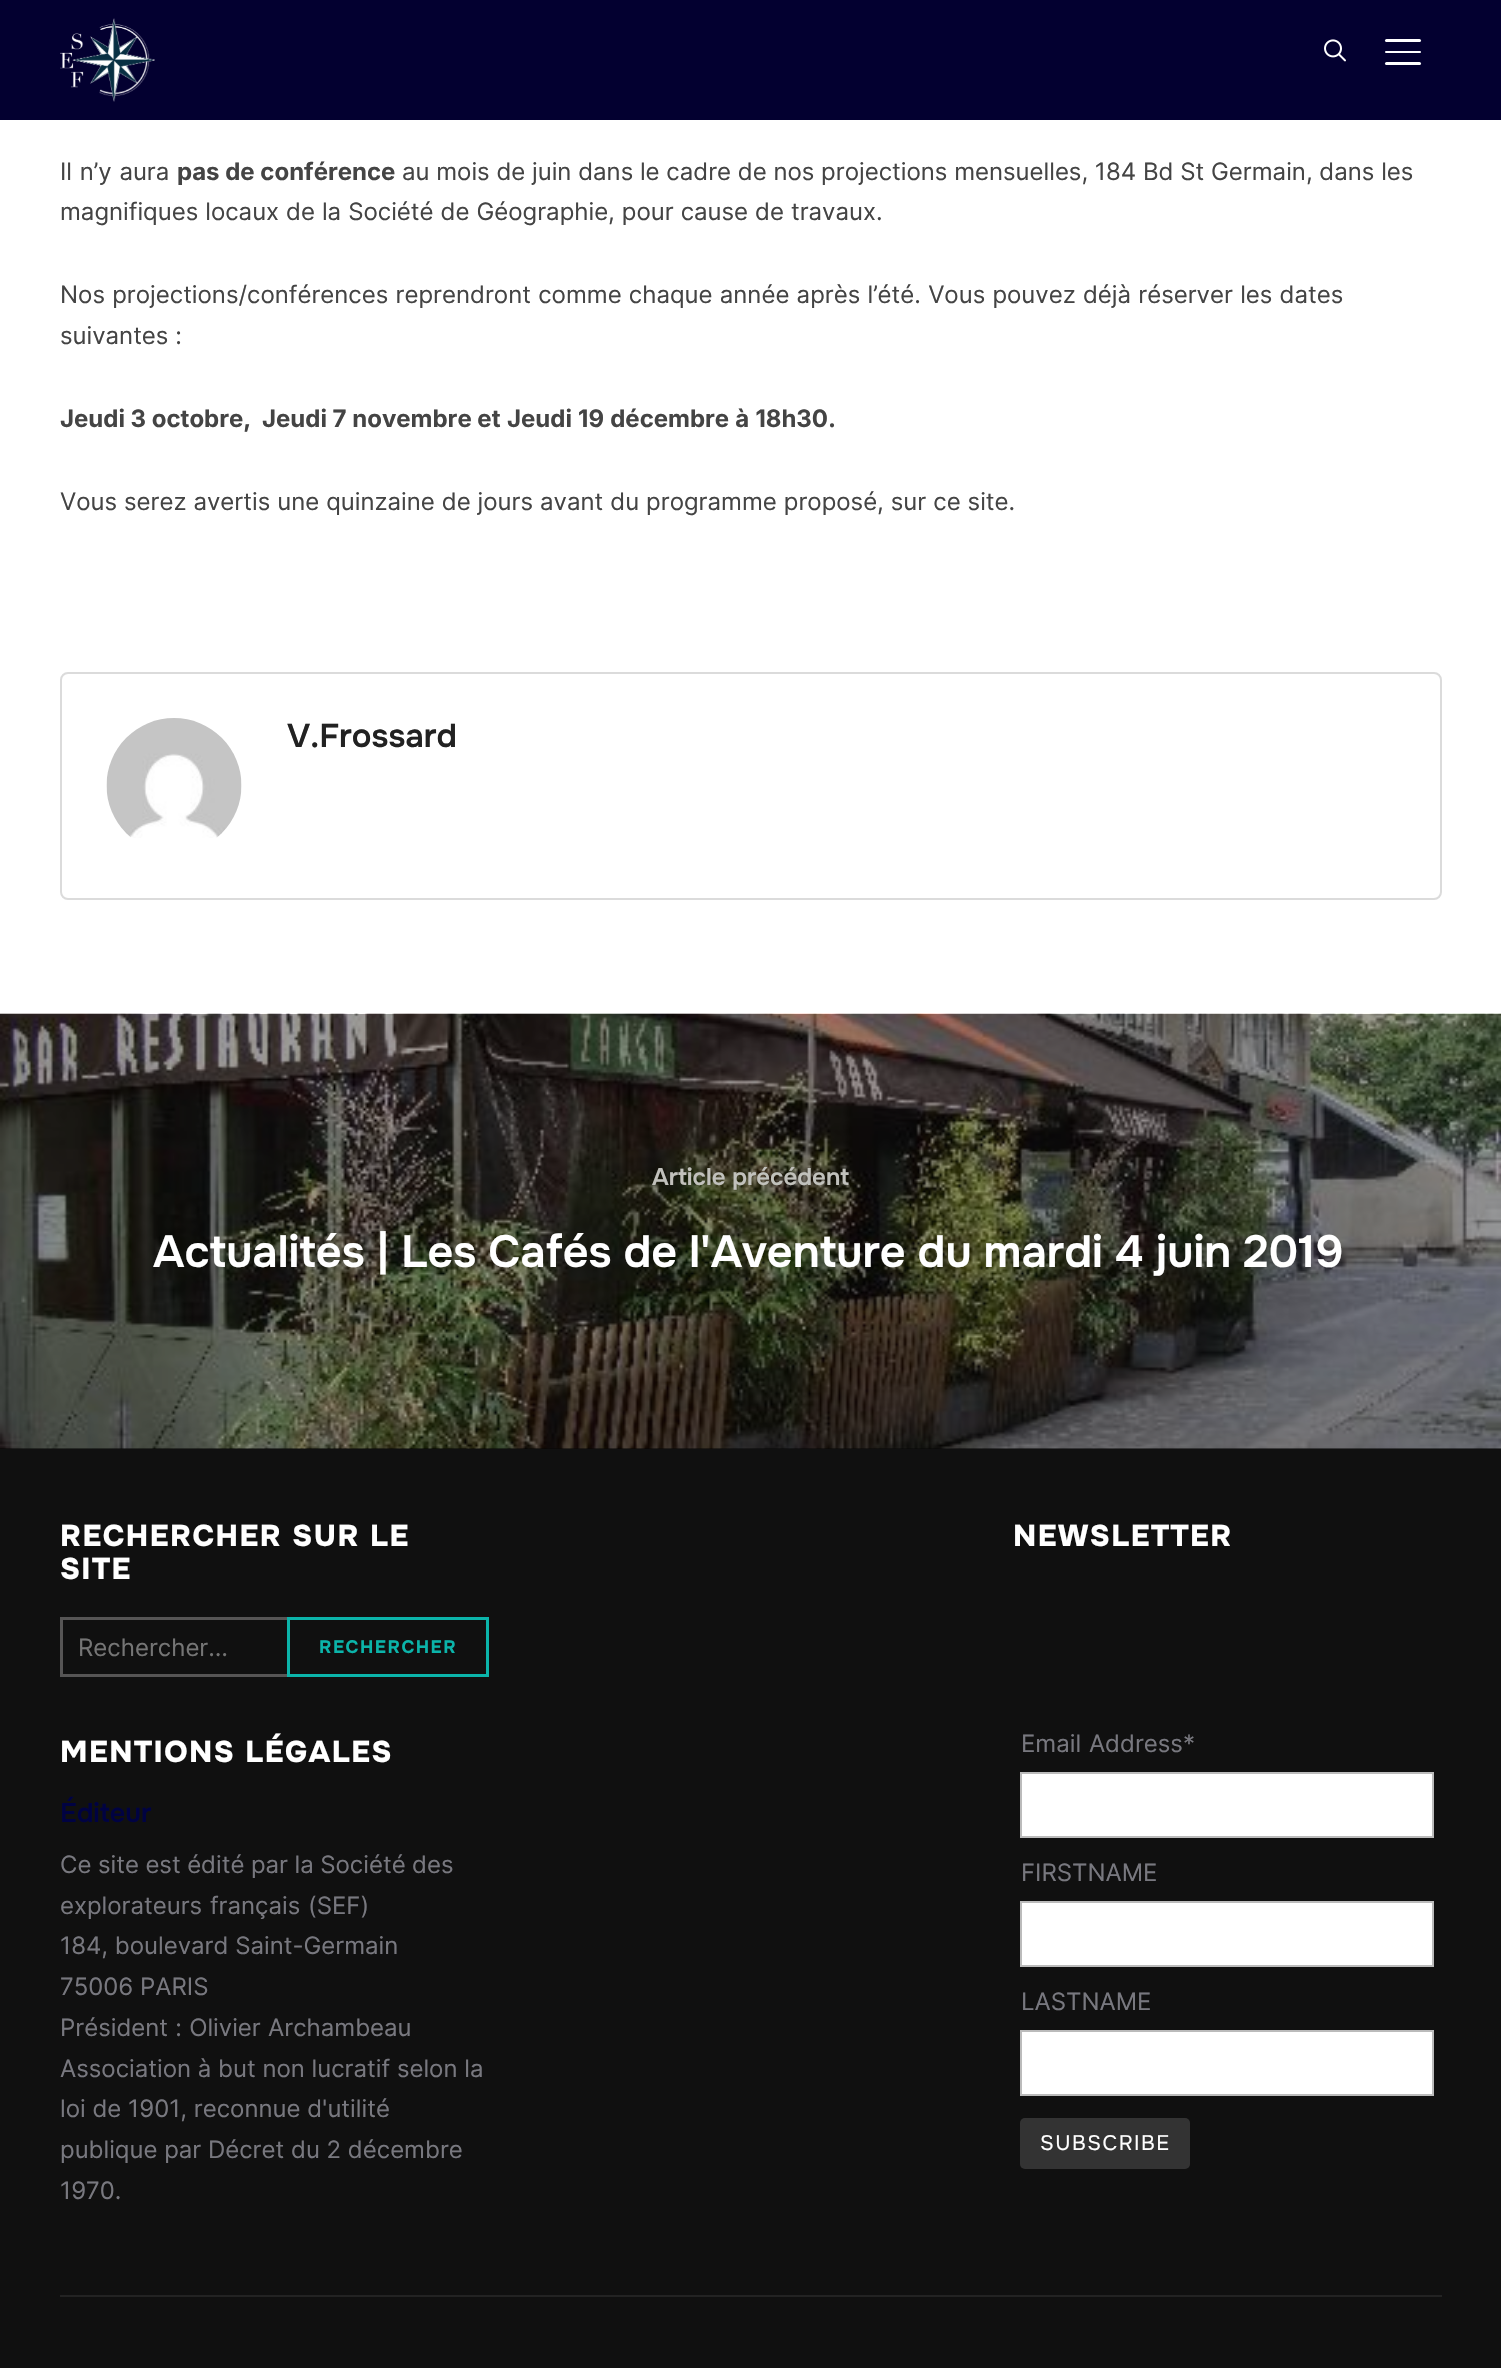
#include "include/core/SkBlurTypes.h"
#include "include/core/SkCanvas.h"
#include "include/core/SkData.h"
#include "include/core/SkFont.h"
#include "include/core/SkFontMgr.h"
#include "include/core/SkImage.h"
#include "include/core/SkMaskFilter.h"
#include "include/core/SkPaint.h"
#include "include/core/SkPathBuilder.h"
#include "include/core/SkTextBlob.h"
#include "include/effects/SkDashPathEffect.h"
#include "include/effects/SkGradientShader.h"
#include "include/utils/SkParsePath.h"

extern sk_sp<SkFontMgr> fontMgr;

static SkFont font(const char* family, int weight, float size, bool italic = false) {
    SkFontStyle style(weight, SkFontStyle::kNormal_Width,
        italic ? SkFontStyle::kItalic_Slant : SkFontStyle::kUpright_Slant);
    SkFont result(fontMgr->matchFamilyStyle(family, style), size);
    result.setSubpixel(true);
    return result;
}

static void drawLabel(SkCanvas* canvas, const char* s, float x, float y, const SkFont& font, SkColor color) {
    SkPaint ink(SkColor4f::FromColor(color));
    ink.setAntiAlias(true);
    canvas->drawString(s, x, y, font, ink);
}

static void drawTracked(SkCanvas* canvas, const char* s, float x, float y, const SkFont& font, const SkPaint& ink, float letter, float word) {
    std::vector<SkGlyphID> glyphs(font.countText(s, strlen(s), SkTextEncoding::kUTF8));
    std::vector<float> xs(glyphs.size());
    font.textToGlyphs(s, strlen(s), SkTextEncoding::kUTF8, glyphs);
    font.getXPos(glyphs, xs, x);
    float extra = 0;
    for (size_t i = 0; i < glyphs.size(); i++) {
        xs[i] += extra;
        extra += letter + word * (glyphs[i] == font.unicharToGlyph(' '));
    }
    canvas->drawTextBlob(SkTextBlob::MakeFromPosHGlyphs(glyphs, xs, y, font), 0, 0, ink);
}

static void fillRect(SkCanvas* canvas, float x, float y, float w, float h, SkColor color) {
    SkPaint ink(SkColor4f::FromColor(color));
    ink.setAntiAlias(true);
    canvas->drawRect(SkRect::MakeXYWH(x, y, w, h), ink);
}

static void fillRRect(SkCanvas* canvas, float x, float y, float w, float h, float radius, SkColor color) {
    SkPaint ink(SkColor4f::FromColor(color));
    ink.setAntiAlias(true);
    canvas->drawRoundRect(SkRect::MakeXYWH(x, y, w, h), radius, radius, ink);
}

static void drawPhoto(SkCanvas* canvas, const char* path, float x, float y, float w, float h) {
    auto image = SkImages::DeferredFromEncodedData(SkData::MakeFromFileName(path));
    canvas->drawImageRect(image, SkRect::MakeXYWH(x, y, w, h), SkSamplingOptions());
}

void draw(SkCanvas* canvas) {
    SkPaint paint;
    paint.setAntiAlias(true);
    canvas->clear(0xFFFFFFFF);
    fillRect(canvas, 0, 0, 1501, 120, 0xFF030030);
    drawPhoto(canvas, "assets/img1.png", 60, 18, 95, 84);
    drawPhoto(canvas, "assets/img2.png", 1324, 39, 22, 23);
    fillRRect(canvas, 1385, 39, 36, 3, 1.5f, 0xFFFFFFFF);
    fillRRect(canvas, 1385, 51, 36, 2, 1, 0xFFFFFFFF);
    fillRRect(canvas, 1385, 62, 36, 3, 1.5f, 0xFFFFFFFF);
    SkFont font1 = font("Inter", 400, 24);
    paint.setColor(0xFF444444);
    drawTracked(canvas, "Il n’y aura", 60, 180, font1, paint, 0, 1);
    SkFont font2 = font("Inter", 700, 24);
    drawLabel(canvas, "pas de conférence", 177, 180, font2, 0xFF444444);
    drawLabel(canvas, "au mois de juin dans le cadre de nos projections mensuelles, 184 Bd St Germain, dans les", 402, 180, font1, 0xFF444444);
    drawTracked(canvas, "magnifiques locaux de la Société de Géographie, pour cause de travaux.", 60, 220, font1, paint, 0, 0.25f);
    drawTracked(canvas, "Nos projections/conférences reprendront comme chaque année après l’été. Vous pouvez déjà réserver les dates", 60, 303, font1, paint, 0, 0.5f);
    drawLabel(canvas, "suivantes :", 60, 344, font1, 0xFF444444);
    drawLabel(canvas, "Jeudi 3 octobre,", 60, 427, font2, 0xFF444444);
    drawLabel(canvas, "Jeudi 7 novembre et", 262, 427, font2, 0xFF444444);
    drawTracked(canvas, "Jeudi 19 décembre à 18h30.", 507, 427, font2, paint, 0, 0.5f);
    drawTracked(canvas, "Vous serez avertis une quinzaine de jours avant du programme proposé, sur ce site.", 60, 510, font1, paint, 0, 0.25f);
    paint.setStroke(true);
    paint.setStrokeWidth(2);
    paint.setColor(0xFFDBDBDB);
    canvas->drawRoundRect(SkRect::MakeXYWH(61, 673, 1380, 226), 7, 7, paint);
    drawPhoto(canvas, "assets/img3.png", 106, 718, 136, 120);
    SkFont font3 = font("Onest", 600, 33);
    drawLabel(canvas, "V.Frossard", 287, 747, font3, 0xFF222222);
    fillRect(canvas, 0, 1014, 1501, 435, 0xFF060606);
    drawPhoto(canvas, "assets/img4.png", 0, 1013, 1501, 436);
    SkFont font4 = font("Onest", 600, 24);
    drawLabel(canvas, "Article précédent", 652, 1185, font4, 0xFFC1C1BC);
    SkFont font5 = font("Onest", 600, 45);
    paint.setStroke(false);
    paint.setColor(0xFFFFFFFF);
    drawTracked(canvas, "Actualités | Les Cafés de l'Aventure du mardi 4 juin 2019", 153, 1267, font5, paint, 0, -0.5f);
    fillRect(canvas, 0, 1449, 1501, 919, 0xFF101010);
    SkFont font6 = font("Onest", 800, 30);
    drawTracked(canvas, "RECHERCHER SUR LE", 60, 1546, font6, paint, 1.5f, 0);
    drawTracked(canvas, "SITE", 60, 1579, font6, paint, 1.5f, 0);
    paint.setStroke(true);
    paint.setStrokeWidth(3);
    paint.setColor(0xFF565555);
    canvas->drawRect(SkRect::MakeXYWH(61.5f, 1618.5f, 426, 57), paint);
    drawLabel(canvas, "Rechercher…", 78, 1656, font1, 0xFF757575);
    paint.setColor(0xFF0BB4AA);
    canvas->drawRect(SkRect::MakeXYWH(288.5f, 1618.5f, 199, 57), paint);
    SkFont font7 = font("Onest", 700, 18);
    paint.setStroke(false);
    drawTracked(canvas, "RECHERCHER", 319, 1653, font7, paint, 1.5f, 0);
    paint.setColor(0xFFFFFFFF);
    drawTracked(canvas, "MENTIONS LÉGALES", 60, 1762, font6, paint, 1.5f, 0);
    SkFont font8 = font("Onest", 600, 27);
    drawLabel(canvas, "Éditeur", 60, 1822, font8, 0xFF000242);
    paint.setColor(0xFF78787F);
    drawTracked(canvas, "Ce site est édité par la Société des", 60, 1873, font1, paint, 0, -0.25f);
    drawTracked(canvas, "explorateurs français (SEF)", 60, 1914, font1, paint, 0, 1);
    drawLabel(canvas, "184, boulevard Saint-Germain", 60, 1954, font1, 0xFF78787F);
    drawLabel(canvas, "75006 PARIS", 60, 1995, font1, 0xFF78787F);
    drawTracked(canvas, "Président : Olivier Archambeau", 60, 2036, font1, paint, 0, 0.5f);
    drawLabel(canvas, "Association à but non lucratif selon la", 60, 2077, font1, 0xFF78787F);
    drawLabel(canvas, "loi de 1901, reconnue d'utilité", 60, 2117, font1, 0xFF78787F);
    drawLabel(canvas, "publique par Décret du 2 décembre", 60, 2158, font1, 0xFF78787F);
    drawLabel(canvas, "1970.", 60, 2199, font1, 0xFF78787F);
    paint.setColor(0xFFFFFFFF);
    drawTracked(canvas, "NEWSLETTER", 1013, 1546, font6, paint, 1.5f, 0);
    paint.setColor(0xFF78787F);
    drawTracked(canvas, "Email Address*", 1021, 1752, font1, paint, 0, 1);
    paint.setColor(0xFFFFFFFF);
    canvas->drawRect(SkRect::MakeXYWH(1021, 1773, 412, 64), paint);
    paint.setStroke(true);
    paint.setStrokeWidth(2);
    paint.setColor(0xFFBBBBBB);
    canvas->drawRect(SkRect::MakeXYWH(1021, 1773, 412, 64), paint);
    drawLabel(canvas, "FIRSTNAME", 1021, 1881, font1, 0xFF78787F);
    paint.setStroke(false);
    paint.setColor(0xFFFFFFFF);
    canvas->drawRect(SkRect::MakeXYWH(1021, 1902, 412, 64), paint);
    paint.setStroke(true);
    paint.setColor(0xFFBBBBBB);
    canvas->drawRect(SkRect::MakeXYWH(1021, 1902, 412, 64), paint);
    drawLabel(canvas, "LASTNAME", 1021, 2010, font1, 0xFF78787F);
    paint.setStroke(false);
    paint.setColor(0xFFFFFFFF);
    canvas->drawRect(SkRect::MakeXYWH(1021, 2031, 412, 64), paint);
    paint.setStroke(true);
    paint.setColor(0xFFBBBBBB);
    canvas->drawRect(SkRect::MakeXYWH(1021, 2031, 412, 64), paint);
    fillRRect(canvas, 1020, 2118, 170, 51, 5, 0xFF333333);
    SkFont font9 = font("Onest", 400, 21);
    paint.setStroke(false);
    paint.setColor(0xFFFFFFFF);
    drawTracked(canvas, "SUBSCRIBE", 1040, 2150, font9, paint, 1.5f, 0);
    fillRect(canvas, 60, 2295, 1382, 2, 0xFF232323);
}
